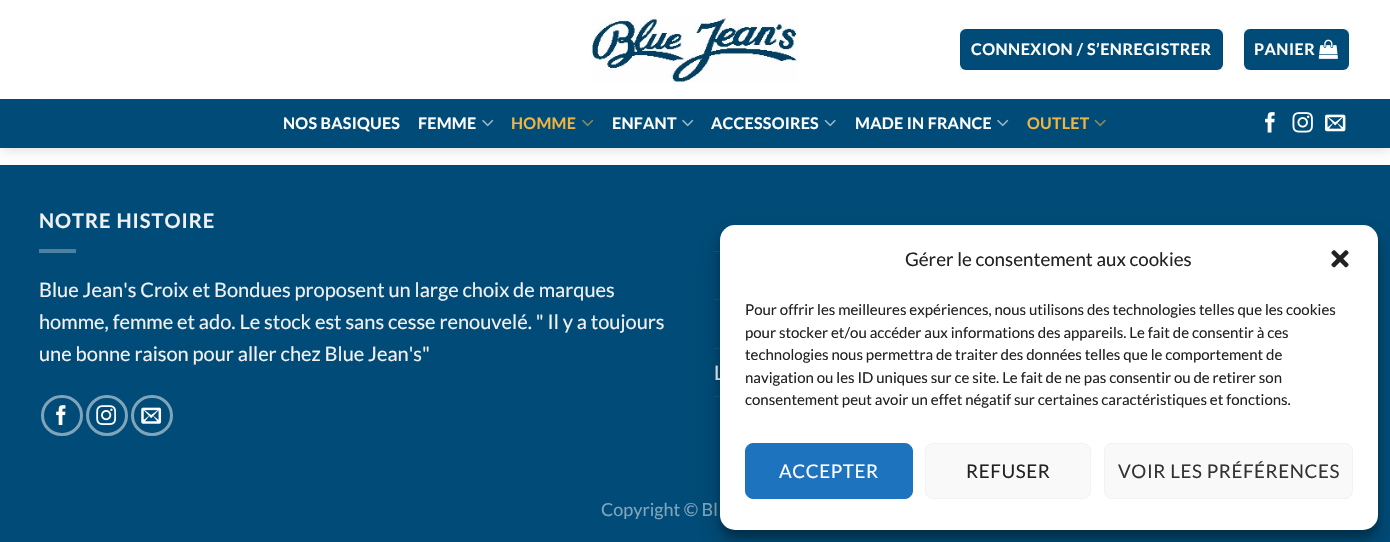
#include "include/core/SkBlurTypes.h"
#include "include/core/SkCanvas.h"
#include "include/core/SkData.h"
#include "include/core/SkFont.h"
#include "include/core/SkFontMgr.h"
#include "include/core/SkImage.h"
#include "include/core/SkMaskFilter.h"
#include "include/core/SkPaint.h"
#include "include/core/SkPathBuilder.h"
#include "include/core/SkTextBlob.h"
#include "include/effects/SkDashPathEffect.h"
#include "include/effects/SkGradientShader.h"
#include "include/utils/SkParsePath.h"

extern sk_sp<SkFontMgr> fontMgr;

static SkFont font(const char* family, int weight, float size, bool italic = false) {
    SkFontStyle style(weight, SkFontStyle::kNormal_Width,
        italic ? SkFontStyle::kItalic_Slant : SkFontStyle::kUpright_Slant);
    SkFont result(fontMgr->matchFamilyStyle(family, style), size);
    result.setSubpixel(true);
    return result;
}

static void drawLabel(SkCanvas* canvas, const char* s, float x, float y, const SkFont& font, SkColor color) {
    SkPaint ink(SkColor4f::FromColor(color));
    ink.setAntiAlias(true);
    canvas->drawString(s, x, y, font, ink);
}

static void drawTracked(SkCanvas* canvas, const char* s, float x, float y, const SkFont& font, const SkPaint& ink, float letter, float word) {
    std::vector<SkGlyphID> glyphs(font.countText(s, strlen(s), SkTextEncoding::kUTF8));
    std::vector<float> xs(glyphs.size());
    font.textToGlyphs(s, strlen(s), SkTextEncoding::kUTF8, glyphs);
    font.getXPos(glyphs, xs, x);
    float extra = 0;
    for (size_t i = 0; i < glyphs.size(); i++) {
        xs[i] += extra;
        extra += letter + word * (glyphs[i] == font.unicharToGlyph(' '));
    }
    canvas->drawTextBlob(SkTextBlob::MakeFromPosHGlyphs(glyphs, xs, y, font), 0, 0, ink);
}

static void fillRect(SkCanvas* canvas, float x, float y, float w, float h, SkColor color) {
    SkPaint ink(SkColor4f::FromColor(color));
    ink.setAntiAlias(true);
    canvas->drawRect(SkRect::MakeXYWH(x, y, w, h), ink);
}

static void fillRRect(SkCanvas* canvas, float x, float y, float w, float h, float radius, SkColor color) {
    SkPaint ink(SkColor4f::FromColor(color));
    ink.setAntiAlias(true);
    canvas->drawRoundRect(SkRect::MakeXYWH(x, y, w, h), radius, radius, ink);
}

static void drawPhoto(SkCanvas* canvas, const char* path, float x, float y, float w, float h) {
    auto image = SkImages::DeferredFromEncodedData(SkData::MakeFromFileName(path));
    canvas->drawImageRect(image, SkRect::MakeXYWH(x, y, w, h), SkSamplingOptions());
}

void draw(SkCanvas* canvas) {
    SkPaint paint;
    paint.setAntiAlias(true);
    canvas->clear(0xFFFFFFFF);
    fillRect(canvas, 0, 166, 1390, 376, 0xFF004B77);
    fillRect(canvas, 0, 165, 1390, 1, 0xFF004771);
    paint.setColor(0x26000000);
    paint.setMaskFilter(SkMaskFilter::MakeBlur(kNormal_SkBlurStyle, 6));
    canvas->drawRect(SkRect::MakeXYWH(1, 1, 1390, 148), paint);
    paint.setMaskFilter(nullptr);
    fillRect(canvas, 0, 0, 1390, 99, 0xFFFFFFFF);
    drawPhoto(canvas, "assets/img1.png", 591, 16, 207, 67);
    fillRRect(canvas, 960, 29, 263, 41, 6, 0xFF004B77);
    paint.setStroke(true);
    paint.setStrokeWidth(1);
    paint.setColor(0x0D000000);
    canvas->drawRect(SkRect::MakeXYWH(960.5f, 29.5f, 262, 40), paint);
    SkFont font1 = font("Lato", 700, 16);
    paint.setStroke(false);
    paint.setColor(0xFFFFFFFF);
    drawTracked(canvas, "CONNEXION / S’ENREGISTRER", 971, 55, font1, paint, 0.5f, 0);
    fillRRect(canvas, 1244, 29, 105, 41, 6, 0xFF004B77);
    paint.setStroke(true);
    paint.setColor(0x0D000000);
    canvas->drawRect(SkRect::MakeXYWH(1244.5f, 29.5f, 104, 40), paint);
    paint.setStroke(false);
    paint.setColor(0xFFFFFFFF);
    drawTracked(canvas, "PANIER", 1254, 55, font1, paint, 0.5f, 0);
    drawPhoto(canvas, "assets/img2.png", 1318, 39, 20, 20);
    fillRect(canvas, 0, 99, 1390, 49, 0xFF004B77);
    fillRect(canvas, 39, 99, 1312, 1, 0xFF0C4F77);
    drawTracked(canvas, "NOS BASIQUES", 283, 129, font1, paint, 0.25f, 0);
    drawTracked(canvas, "FEMME", 418, 129, font1, paint, 0.25f, 0);
    drawPhoto(canvas, "assets/img3.png", 482, 119, 12, 8);
    paint.setColor(0xFFEFB542);
    drawTracked(canvas, "HOMME", 511, 129, font1, paint, 0.25f, 0);
    drawPhoto(canvas, "assets/img4.png", 582, 119, 12, 8);
    paint.setColor(0xFFFFFFFF);
    drawTracked(canvas, "ENFANT", 612, 129, font1, paint, 0.25f, 0);
    drawPhoto(canvas, "assets/img3.png", 682, 119, 12, 8);
    drawTracked(canvas, "ACCESSOIRES", 711, 129, font1, paint, 0.25f, 0);
    drawPhoto(canvas, "assets/img5.png", 824, 119, 12, 8);
    drawTracked(canvas, "MADE IN FRANCE", 855, 129, font1, paint, 0.25f, 0);
    drawPhoto(canvas, "assets/img3.png", 997, 119, 12, 8);
    paint.setColor(0xFFEFB542);
    drawTracked(canvas, "OUTLET", 1027, 129, font1, paint, 0.25f, 0);
    drawPhoto(canvas, "assets/img6.png", 1094, 119, 12, 8);
    drawPhoto(canvas, "assets/img7.png", 1265, 112, 10, 21);
    drawPhoto(canvas, "assets/img8.png", 1292, 112, 21, 21);
    drawPhoto(canvas, "assets/img9.png", 1325, 114, 21, 18);
    SkFont font2 = font("Lato", 700, 20);
    paint.setColor(0xFFF1F1F1);
    drawTracked(canvas, "NOTRE HISTOIRE", 39, 228, font2, paint, 1, 0);
    fillRect(canvas, 39, 249, 37, 4, 0xFF4D81A0);
    SkFont font3 = font("Lato", 400, 20);
    drawLabel(canvas, "Blue Jean's Croix et Bondues proposent un large choix de marques", 39, 297, font3, 0xFFF1F1F1);
    drawLabel(canvas, "homme, femme et ado. Le stock est sans cesse renouvelé. \" Il y a toujours", 39, 329, font3, 0xFFF1F1F1);
    drawLabel(canvas, "une bonne raison pour aller chez Blue Jean's\"", 39, 361, font3, 0xFFF1F1F1);
    paint.setStroke(true);
    paint.setStrokeWidth(3);
    paint.setColor(0xFF80A5BB);
    canvas->drawRoundRect(SkRect::MakeXYWH(42.5f, 396.5f, 39, 38), 19, 19, paint);
    drawPhoto(canvas, "assets/img10.png", 56, 405, 10, 20);
    canvas->drawRoundRect(SkRect::MakeXYWH(87.5f, 396.5f, 39, 38), 19, 19, paint);
    drawPhoto(canvas, "assets/img11.png", 96, 405, 20, 20);
    canvas->drawRoundRect(SkRect::MakeXYWH(132.5f, 396.5f, 39, 38), 19, 19, paint);
    drawPhoto(canvas, "assets/img12.png", 141, 407, 21, 17);
    fillRect(canvas, 714, 251, 6, 1, 0xFF145982);
    fillRect(canvas, 714, 299, 6, 1, 0xFF145982);
    fillRect(canvas, 714, 348, 6, 1, 0xFF145982);
    drawLabel(canvas, "L", 714, 380, font3, 0xFFF1F1F1);
    fillRect(canvas, 714, 396, 6, 1, 0xFF145982);
    SkFont font4 = font("Lato", 400, 18);
    drawLabel(canvas, "Copyright © Bl", 601, 516, font4, 0xFF80A5BB);
    paint.setStroke(false);
    paint.setColor(0x3B000000);
    paint.setMaskFilter(SkMaskFilter::MakeBlur(kNormal_SkBlurStyle, 4));
    canvas->drawRoundRect(SkRect::MakeXYWH(720, 233, 658, 305), 15, 15, paint);
    paint.setMaskFilter(nullptr);
    paint.setColor(0x30000000);
    paint.setMaskFilter(SkMaskFilter::MakeBlur(kNormal_SkBlurStyle, 12.5f));
    canvas->drawRoundRect(SkRect::MakeXYWH(720, 238, 658, 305), 15, 15, paint);
    paint.setMaskFilter(nullptr);
    fillRRect(canvas, 720, 225, 658, 305, 15, 0xFFFFFFFF);
    SkFont font5 = font("Lato", 400, 18.75f);
    drawLabel(canvas, "Gérer le consentement aux cookies", 905, 266, font5, 0xFF222222);
    drawPhoto(canvas, "assets/img13.png", 1331, 250, 18, 18);
    SkFont font6 = font("Lato", 400, 15);
    drawLabel(canvas, "Pour offrir les meilleures expériences, nous utilisons des technologies telles que les cookies", 745, 315, font6, 0xFF222222);
    drawLabel(canvas, "pour stocker et/ou accéder aux informations des appareils. Le fait de consentir à ces", 745, 338, font6, 0xFF222222);
    drawLabel(canvas, "technologies nous permettra de traiter des données telles que le comportement de", 745, 360, font6, 0xFF222222);
    drawLabel(canvas, "navigation ou les ID uniques sur ce site. Le fait de ne pas consentir ou de retirer son", 745, 383, font6, 0xFF222222);
    drawLabel(canvas, "consentement peut avoir un effet négatif sur certaines caractéristiques et fonctions.", 745, 405, font6, 0xFF222222);
    paint.setColor(0xFF1E73BE);
    canvas->drawRoundRect(SkRect::MakeXYWH(745.5f, 443.5f, 167, 55), 7.5f, 7.5f, paint);
    paint.setStroke(true);
    paint.setStrokeWidth(1);
    canvas->drawRoundRect(SkRect::MakeXYWH(745.5f, 443.5f, 167, 55), 7.5f, 7.5f, paint);
    paint.setStroke(false);
    paint.setColor(0xFFFFFFFF);
    drawTracked(canvas, "ACCEPTER", 779, 478, font5, paint, 0.6f, 0);
    paint.setColor(0xFFF9F9F9);
    canvas->drawRoundRect(SkRect::MakeXYWH(925.5f, 443.5f, 165, 55), 7.5f, 7.5f, paint);
    paint.setStroke(true);
    paint.setColor(0xFFF2F2F2);
    canvas->drawRoundRect(SkRect::MakeXYWH(925.5f, 443.5f, 165, 55), 7.5f, 7.5f, paint);
    paint.setStroke(false);
    paint.setColor(0xFF222222);
    drawTracked(canvas, "REFUSER", 966, 478, font5, paint, 0.6f, 0);
    paint.setColor(0xFFF9F9F9);
    canvas->drawRoundRect(SkRect::MakeXYWH(1104.5f, 443.5f, 248, 55), 7.5f, 7.5f, paint);
    paint.setStroke(true);
    paint.setColor(0xFFF2F2F2);
    canvas->drawRoundRect(SkRect::MakeXYWH(1104.5f, 443.5f, 248, 55), 7.5f, 7.5f, paint);
    paint.setStroke(false);
    paint.setColor(0xFF333333);
    drawTracked(canvas, "VOIR LES PRÉFÉRENCES", 1118, 478, font5, paint, 0.6f, 0);
}
